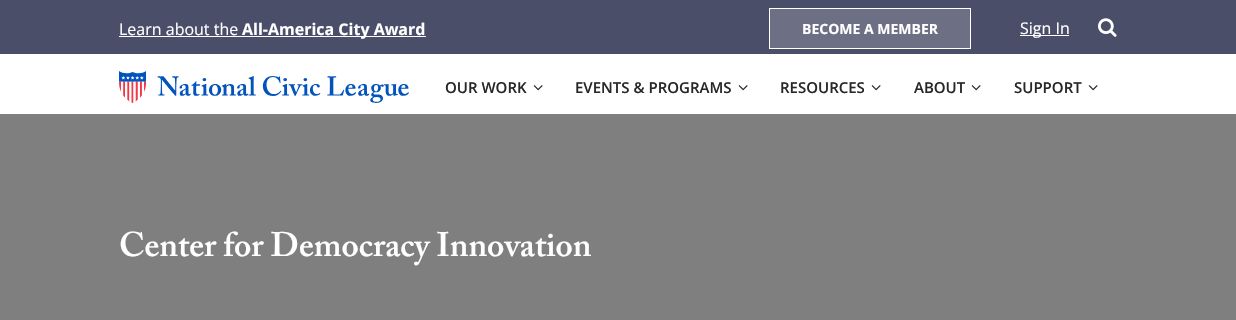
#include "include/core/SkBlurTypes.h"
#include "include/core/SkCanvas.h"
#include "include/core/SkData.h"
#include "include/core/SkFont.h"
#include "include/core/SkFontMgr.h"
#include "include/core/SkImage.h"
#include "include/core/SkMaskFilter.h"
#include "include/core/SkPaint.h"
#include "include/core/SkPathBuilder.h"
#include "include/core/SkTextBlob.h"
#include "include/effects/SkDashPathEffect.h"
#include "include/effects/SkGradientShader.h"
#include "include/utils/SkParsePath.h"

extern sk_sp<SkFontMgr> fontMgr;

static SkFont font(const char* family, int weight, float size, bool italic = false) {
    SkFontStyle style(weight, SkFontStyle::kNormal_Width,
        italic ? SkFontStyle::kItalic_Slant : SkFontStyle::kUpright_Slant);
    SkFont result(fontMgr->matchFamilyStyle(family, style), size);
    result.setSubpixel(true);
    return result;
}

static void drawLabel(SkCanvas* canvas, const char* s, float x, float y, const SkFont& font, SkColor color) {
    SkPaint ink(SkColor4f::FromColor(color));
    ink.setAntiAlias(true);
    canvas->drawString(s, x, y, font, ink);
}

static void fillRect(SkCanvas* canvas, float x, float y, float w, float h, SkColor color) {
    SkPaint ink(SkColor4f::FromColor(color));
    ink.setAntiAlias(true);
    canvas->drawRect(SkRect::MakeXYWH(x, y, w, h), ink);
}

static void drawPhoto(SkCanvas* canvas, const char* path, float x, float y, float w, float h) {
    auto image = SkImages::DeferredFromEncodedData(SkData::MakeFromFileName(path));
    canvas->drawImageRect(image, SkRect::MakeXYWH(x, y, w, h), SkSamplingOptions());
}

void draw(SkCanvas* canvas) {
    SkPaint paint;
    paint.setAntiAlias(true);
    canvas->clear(0xFF4A4E69);
    SkFont font1 = font("Open Sans", 400, 16);
    drawLabel(canvas, "Learn about the", 119, 35, font1, 0xFFFFFFFF);
    fillRect(canvas, 119, 36, 307, 1, 0xFFFFFFFF);
    SkFont font2 = font("Open Sans", 700, 16);
    drawLabel(canvas, "All-America City Award", 242, 35, font2, 0xFFFFFFFF);
    paint.setColor(0xFF6D6F85);
    canvas->drawRect(SkRect::MakeXYWH(769.5f, 8.5f, 201, 40), paint);
    paint.setStroke(true);
    paint.setStrokeWidth(1);
    paint.setColor(0xFFFFFFFF);
    canvas->drawRect(SkRect::MakeXYWH(769.5f, 8.5f, 201, 40), paint);
    SkFont font3 = font("Open Sans", 700, 14);
    drawLabel(canvas, "BECOME A MEMBER", 802, 34, font3, 0xFFFFFFFF);
    fillRect(canvas, 1020, 35, 49, 1, 0xFFFFFFFF);
    drawLabel(canvas, "Sign In", 1020, 34, font1, 0xFFFFFFFF);
    drawPhoto(canvas, "assets/img1.png", 1098, 18, 19, 19);
    fillRect(canvas, 0, 54, 1236, 60, 0xFFFFFFFF);
    drawPhoto(canvas, "assets/img2.png", 119, 71, 290, 32);
    SkFont font4 = font("Open Sans", 600, 15);
    drawLabel(canvas, "OUR WORK", 445, 93, font4, 0xFF282829);
    drawPhoto(canvas, "assets/img3.png", 533, 85, 10, 6);
    drawLabel(canvas, "EVENTS & PROGRAMS", 575, 93, font4, 0xFF282829);
    drawPhoto(canvas, "assets/img3.png", 738, 85, 10, 6);
    drawLabel(canvas, "RESOURCES", 780, 93, font4, 0xFF282829);
    drawPhoto(canvas, "assets/img3.png", 871, 85, 10, 6);
    drawLabel(canvas, "ABOUT", 914, 93, font4, 0xFF282829);
    drawPhoto(canvas, "assets/img3.png", 971, 85, 10, 6);
    drawLabel(canvas, "SUPPORT", 1014, 93, font4, 0xFF282829);
    drawPhoto(canvas, "assets/img3.png", 1088, 85, 10, 6);
    fillRect(canvas, 0, 114, 1236, 206, 0xFF7F7F7F);
    SkFont font5 = font("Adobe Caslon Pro", 600, 34);
    drawLabel(canvas, "Center for Democracy Innovation", 119, 256, font5, 0xFFFFFFFF);
}
